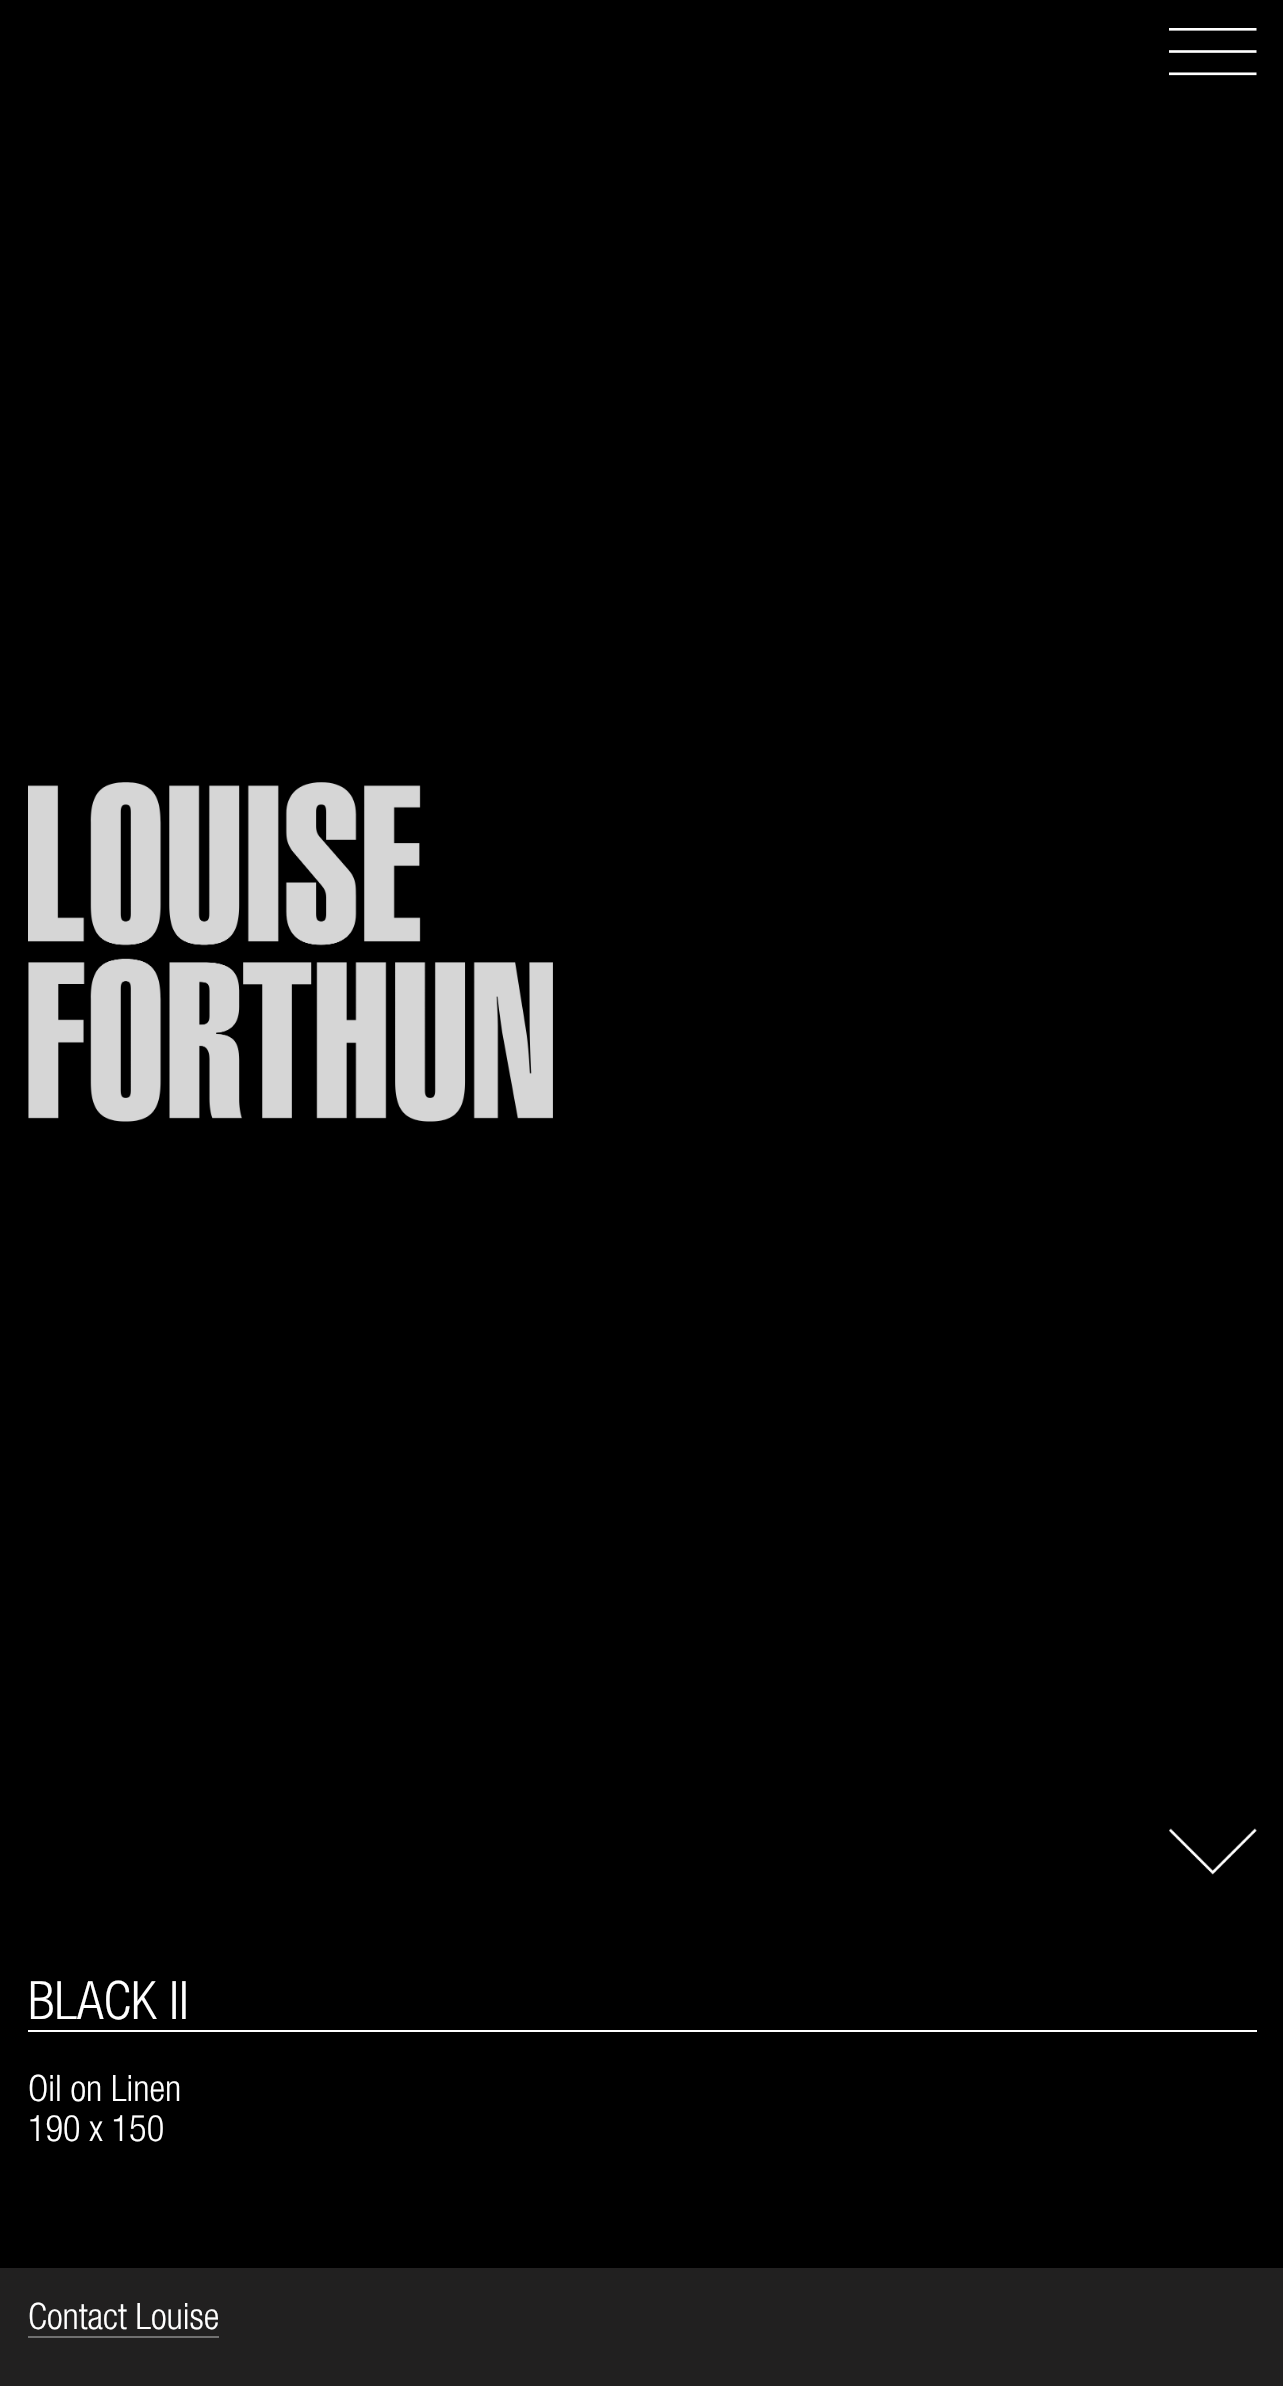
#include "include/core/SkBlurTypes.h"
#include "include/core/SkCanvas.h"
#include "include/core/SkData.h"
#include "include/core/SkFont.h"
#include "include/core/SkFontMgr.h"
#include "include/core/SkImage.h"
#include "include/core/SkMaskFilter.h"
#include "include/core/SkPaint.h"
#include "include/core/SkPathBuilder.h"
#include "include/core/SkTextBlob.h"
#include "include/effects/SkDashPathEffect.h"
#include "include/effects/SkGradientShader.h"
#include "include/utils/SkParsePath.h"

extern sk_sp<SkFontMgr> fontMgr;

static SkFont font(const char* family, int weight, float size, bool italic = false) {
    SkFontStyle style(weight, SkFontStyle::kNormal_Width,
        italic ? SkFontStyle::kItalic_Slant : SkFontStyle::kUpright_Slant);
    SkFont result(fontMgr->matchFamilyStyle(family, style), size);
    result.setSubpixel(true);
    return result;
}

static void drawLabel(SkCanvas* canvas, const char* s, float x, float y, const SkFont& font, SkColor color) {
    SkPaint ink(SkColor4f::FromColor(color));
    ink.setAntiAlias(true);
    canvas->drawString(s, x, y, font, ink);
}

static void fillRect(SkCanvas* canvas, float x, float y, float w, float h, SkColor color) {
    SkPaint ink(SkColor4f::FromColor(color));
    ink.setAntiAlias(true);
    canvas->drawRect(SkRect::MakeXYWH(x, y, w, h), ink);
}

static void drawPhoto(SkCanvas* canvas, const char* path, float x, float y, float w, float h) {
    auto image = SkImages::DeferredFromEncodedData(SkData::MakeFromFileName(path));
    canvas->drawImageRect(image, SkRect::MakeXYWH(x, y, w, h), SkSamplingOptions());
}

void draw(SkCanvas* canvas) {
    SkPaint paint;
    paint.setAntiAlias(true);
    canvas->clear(0xFF000000);
    drawPhoto(canvas, "assets/img1.png", 1169, 28, 88, 48);
    drawPhoto(canvas, "assets/img2.png", 28, 782, 525, 340);
    drawPhoto(canvas, "assets/img3.png", 1169, 1828, 88, 47);
    fillRect(canvas, 28, 2030, 1229, 2, 0xFFFFFFFF);
    SkFont font1 = font("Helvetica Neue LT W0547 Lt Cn", 300, 53);
    drawLabel(canvas, "BLACK II", 28, 2019, font1, 0xFFFFFFFF);
    SkFont font2 = font("Helvetica Neue LT W0547 Lt Cn", 300, 36.5f);
    drawLabel(canvas, "Oil on Linen", 28, 2101, font2, 0xFFFFFFFF);
    drawLabel(canvas, "190 x 150", 28, 2141, font2, 0xFFFFFFFF);
    fillRect(canvas, 0, 2268, 1283, 118, 0xFF212020);
    fillRect(canvas, 28, 2336, 191, 2, 0xFF707070);
    drawLabel(canvas, "Contact Louise", 28, 2329, font2, 0xFFFFFFFF);
}
